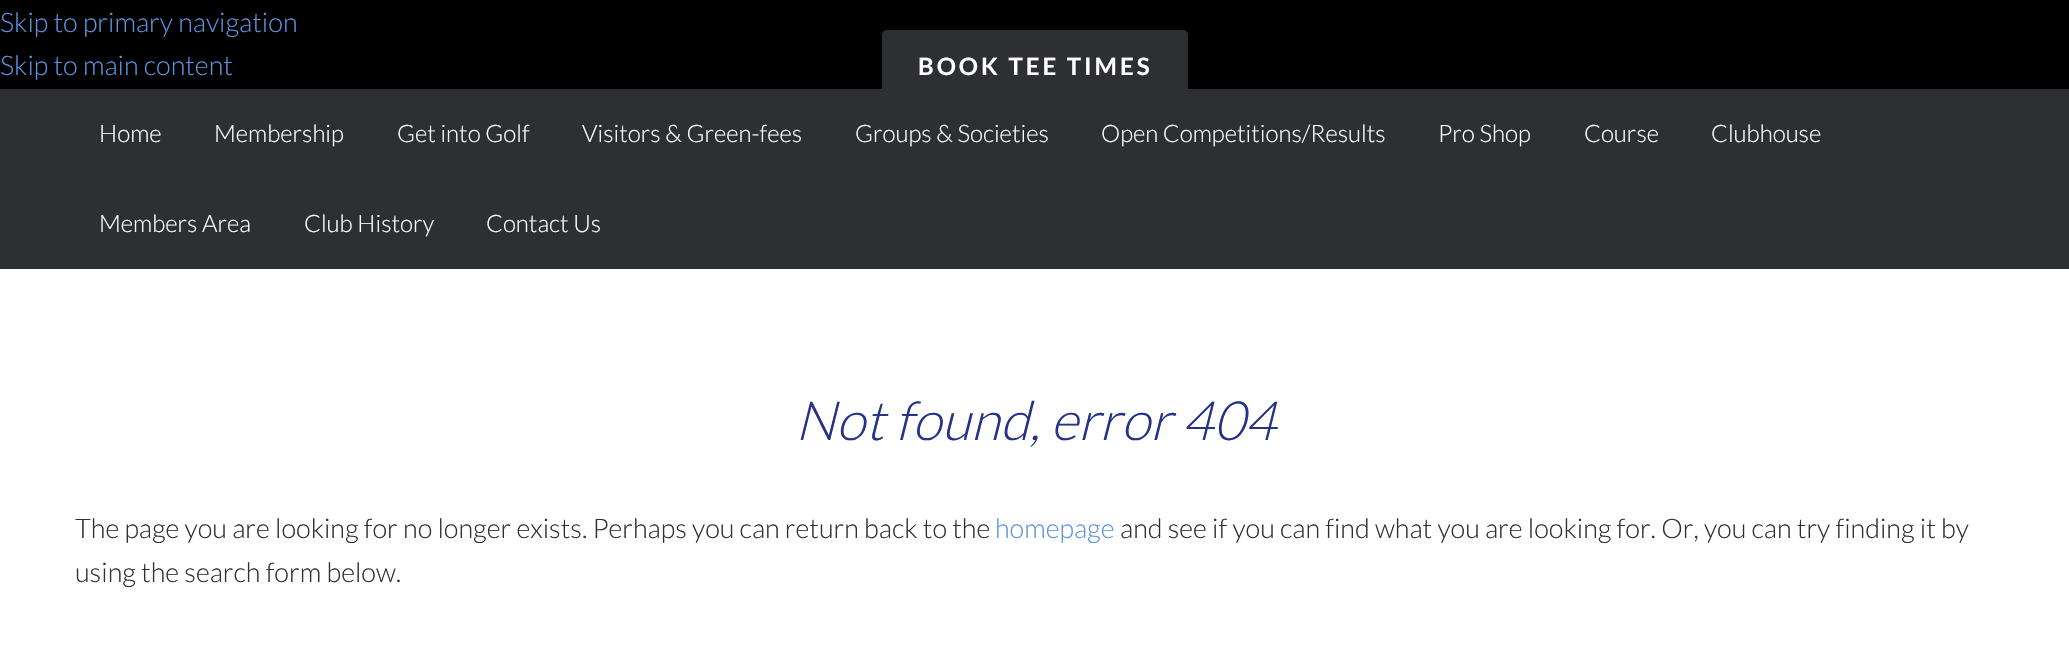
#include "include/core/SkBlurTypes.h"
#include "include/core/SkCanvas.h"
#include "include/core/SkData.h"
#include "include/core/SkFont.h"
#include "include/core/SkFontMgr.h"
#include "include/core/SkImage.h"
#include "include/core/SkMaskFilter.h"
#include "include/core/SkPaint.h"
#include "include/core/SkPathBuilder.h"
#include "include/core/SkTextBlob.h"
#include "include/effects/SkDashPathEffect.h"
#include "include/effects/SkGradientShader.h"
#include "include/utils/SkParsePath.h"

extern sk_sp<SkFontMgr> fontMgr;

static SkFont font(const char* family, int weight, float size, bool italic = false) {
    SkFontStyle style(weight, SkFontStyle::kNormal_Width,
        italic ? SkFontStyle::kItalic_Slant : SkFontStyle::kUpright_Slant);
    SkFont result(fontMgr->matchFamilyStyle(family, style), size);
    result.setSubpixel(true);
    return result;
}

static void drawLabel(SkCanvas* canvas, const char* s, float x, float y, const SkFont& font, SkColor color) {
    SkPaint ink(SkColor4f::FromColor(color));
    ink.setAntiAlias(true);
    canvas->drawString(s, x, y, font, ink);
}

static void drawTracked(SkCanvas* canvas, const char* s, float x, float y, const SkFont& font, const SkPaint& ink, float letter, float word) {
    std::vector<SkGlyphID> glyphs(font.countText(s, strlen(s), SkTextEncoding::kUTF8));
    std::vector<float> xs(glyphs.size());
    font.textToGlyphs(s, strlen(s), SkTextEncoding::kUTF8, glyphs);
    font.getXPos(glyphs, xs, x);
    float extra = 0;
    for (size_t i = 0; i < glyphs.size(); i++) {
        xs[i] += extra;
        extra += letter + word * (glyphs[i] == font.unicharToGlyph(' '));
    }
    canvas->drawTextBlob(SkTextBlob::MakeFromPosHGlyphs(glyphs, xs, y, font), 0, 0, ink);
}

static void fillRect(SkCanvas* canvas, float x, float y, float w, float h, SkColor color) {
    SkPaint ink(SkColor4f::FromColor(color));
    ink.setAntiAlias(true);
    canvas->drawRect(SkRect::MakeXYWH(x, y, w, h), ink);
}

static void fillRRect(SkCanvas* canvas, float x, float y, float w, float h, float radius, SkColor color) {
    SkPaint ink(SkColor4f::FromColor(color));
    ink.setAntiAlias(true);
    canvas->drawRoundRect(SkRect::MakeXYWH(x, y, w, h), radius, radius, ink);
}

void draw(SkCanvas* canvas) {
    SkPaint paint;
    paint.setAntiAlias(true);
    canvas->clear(0xFF000000);
    SkFont font1 = font("Lato", 300, 27);
    drawLabel(canvas, "Skip to primary navigation", 0, 32, font1, 0xFF5D93DF);
    drawLabel(canvas, "Skip to main content", 0, 75, font1, 0xFF5D93DF);
    fillRect(canvas, 0, 89, 2069, 180, 0xFF2E2F33);
    fillRRect(canvas, 882, 30, 306, 72, 5, 0xFF2E2F33);
    SkFont font2 = font("Lato", 700, 24);
    paint.setColor(0xFFFFFFFF);
    drawTracked(canvas, "BOOK TEE TIMES", 918, 75, font2, paint, 3, 0);
    SkFont font3 = font("Lato", 300, 24);
    drawLabel(canvas, "Home", 99, 142, font3, 0xFFFFFFFF);
    drawLabel(canvas, "Membership", 214, 142, font3, 0xFFFFFFFF);
    drawLabel(canvas, "Get into Golf", 397, 142, font3, 0xFFFFFFFF);
    drawLabel(canvas, "Visitors & Green-fees", 582, 142, font3, 0xFFFFFFFF);
    drawLabel(canvas, "Groups & Societies", 855, 142, font3, 0xFFFFFFFF);
    drawLabel(canvas, "Open Competitions/Results", 1101, 142, font3, 0xFFFFFFFF);
    drawLabel(canvas, "Pro Shop", 1438, 142, font3, 0xFFFFFFFF);
    drawLabel(canvas, "Course", 1584, 142, font3, 0xFFFFFFFF);
    drawLabel(canvas, "Clubhouse", 1711, 142, font3, 0xFFFFFFFF);
    drawLabel(canvas, "Members Area", 99, 232, font3, 0xFFFFFFFF);
    drawLabel(canvas, "Club History", 304, 232, font3, 0xFFFFFFFF);
    drawLabel(canvas, "Contact Us", 486, 232, font3, 0xFFFFFFFF);
    fillRect(canvas, 0, 269, 2069, 376, 0xFFFFFFFF);
    SkFont font4 = font("Lato", 300, 54, true);
    drawLabel(canvas, "Not found, error 404", 795, 440, font4, 0xFF253288);
    drawLabel(canvas, "The page you are looking for no longer exists. Perhaps you can return back to the", 75, 538, font1, 0xFF2E2F33);
    drawLabel(canvas, "homepage", 995, 538, font1, 0xFF5D93DF);
    drawLabel(canvas, "and see if you can find what you are looking for. Or, you can try finding it by", 1120, 538, font1, 0xFF2E2F33);
    drawLabel(canvas, "using the search form below.", 75, 582, font1, 0xFF2E2F33);
}
